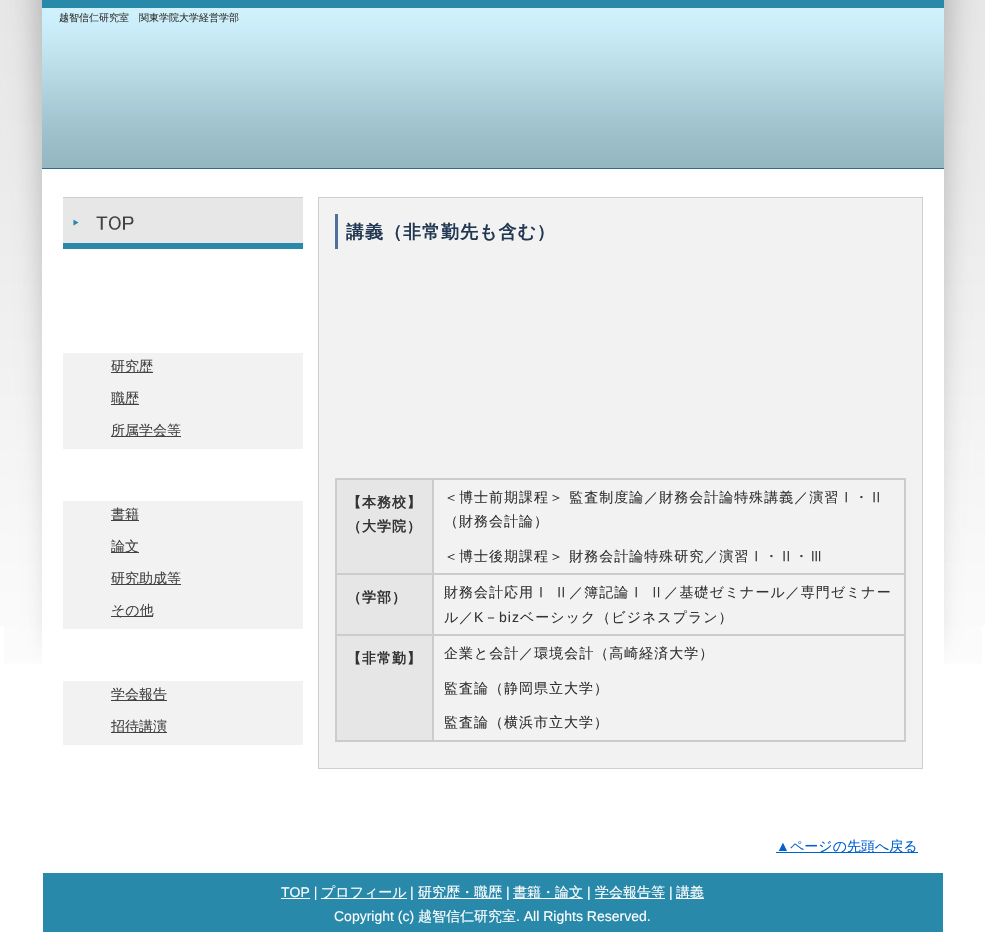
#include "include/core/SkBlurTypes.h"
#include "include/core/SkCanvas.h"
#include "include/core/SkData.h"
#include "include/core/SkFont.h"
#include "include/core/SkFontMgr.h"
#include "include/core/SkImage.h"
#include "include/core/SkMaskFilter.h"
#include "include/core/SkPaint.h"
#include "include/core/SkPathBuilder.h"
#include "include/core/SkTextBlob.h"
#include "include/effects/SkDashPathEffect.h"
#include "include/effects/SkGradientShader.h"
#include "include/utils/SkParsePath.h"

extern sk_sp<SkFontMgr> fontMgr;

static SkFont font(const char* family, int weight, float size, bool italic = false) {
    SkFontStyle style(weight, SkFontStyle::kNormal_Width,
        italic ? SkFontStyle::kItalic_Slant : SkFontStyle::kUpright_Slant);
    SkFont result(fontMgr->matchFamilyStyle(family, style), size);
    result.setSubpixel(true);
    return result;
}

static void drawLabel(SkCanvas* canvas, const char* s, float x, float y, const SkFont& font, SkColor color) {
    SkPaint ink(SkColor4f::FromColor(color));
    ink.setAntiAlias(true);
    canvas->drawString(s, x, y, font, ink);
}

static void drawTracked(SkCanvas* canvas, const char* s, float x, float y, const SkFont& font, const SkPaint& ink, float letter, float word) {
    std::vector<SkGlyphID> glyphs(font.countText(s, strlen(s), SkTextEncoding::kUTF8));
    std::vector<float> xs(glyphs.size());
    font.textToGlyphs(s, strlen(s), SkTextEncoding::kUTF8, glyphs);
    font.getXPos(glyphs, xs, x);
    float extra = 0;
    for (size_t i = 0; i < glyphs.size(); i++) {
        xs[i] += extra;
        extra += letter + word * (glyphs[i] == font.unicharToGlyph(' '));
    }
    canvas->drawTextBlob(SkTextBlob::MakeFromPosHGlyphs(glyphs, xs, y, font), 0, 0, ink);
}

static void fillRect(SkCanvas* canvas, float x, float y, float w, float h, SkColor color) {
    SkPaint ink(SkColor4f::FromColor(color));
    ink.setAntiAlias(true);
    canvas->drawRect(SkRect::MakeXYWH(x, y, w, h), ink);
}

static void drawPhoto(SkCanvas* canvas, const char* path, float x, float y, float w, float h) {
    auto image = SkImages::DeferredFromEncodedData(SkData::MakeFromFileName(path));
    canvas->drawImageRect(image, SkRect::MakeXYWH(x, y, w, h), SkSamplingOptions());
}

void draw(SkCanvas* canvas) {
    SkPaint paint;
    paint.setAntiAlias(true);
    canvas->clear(0xFFFFFFFF);
    drawPhoto(canvas, "assets/img1.png", 0, 0, 985, 626);
    drawPhoto(canvas, "assets/img2.png", 4, 0, 978, 664);
    drawPhoto(canvas, "assets/img3.png", 42, 0, 902, 169);
    SkFont font1 = font("WenQuanYi Zen Hei", 500, 10);
    drawLabel(canvas, "越智信仁研究室　関東学院大学経営学部", 59, 21, font1, 0xFF333333);
    drawPhoto(canvas, "assets/img4.png", 63, 197, 240, 52);
    fillRect(canvas, 63, 353, 240, 96, 0xFFF2F2F2);
    fillRect(canvas, 111, 372, 42, 1, 0xFF424242);
    SkFont font2 = font("WenQuanYi Zen Hei", 500, 14);
    drawLabel(canvas, "研究歴", 111, 371, font2, 0xFF424242);
    fillRect(canvas, 111, 404, 28, 1, 0xFF424242);
    drawLabel(canvas, "職歴", 111, 403, font2, 0xFF424242);
    fillRect(canvas, 111, 436, 70, 1, 0xFF424242);
    drawLabel(canvas, "所属学会等", 111, 435, font2, 0xFF424242);
    fillRect(canvas, 63, 501, 240, 128, 0xFFF2F2F2);
    fillRect(canvas, 111, 520, 28, 1, 0xFF424242);
    drawLabel(canvas, "書籍", 111, 519, font2, 0xFF424242);
    fillRect(canvas, 111, 552, 28, 1, 0xFF424242);
    drawLabel(canvas, "論文", 111, 551, font2, 0xFF424242);
    fillRect(canvas, 111, 584, 70, 1, 0xFF424242);
    drawLabel(canvas, "研究助成等", 111, 583, font2, 0xFF424242);
    fillRect(canvas, 111, 616, 42, 1, 0xFF424242);
    drawLabel(canvas, "その他", 111, 615, font2, 0xFF424242);
    fillRect(canvas, 63, 681, 240, 64, 0xFFF2F2F2);
    fillRect(canvas, 111, 700, 56, 1, 0xFF424242);
    drawLabel(canvas, "学会報告", 111, 699, font2, 0xFF424242);
    fillRect(canvas, 111, 732, 56, 1, 0xFF424242);
    drawLabel(canvas, "招待講演", 111, 731, font2, 0xFF424242);
    paint.setColor(0xFFF2F2F2);
    canvas->drawRect(SkRect::MakeXYWH(318.5f, 197.5f, 604, 571), paint);
    paint.setStroke(true);
    paint.setStrokeWidth(1);
    paint.setColor(0xFFCFCFCF);
    canvas->drawRect(SkRect::MakeXYWH(318.5f, 197.5f, 604, 571), paint);
    fillRect(canvas, 335, 214, 3, 35, 0xFF4F7198);
    SkFont font3 = font("WenQuanYi Zen Hei", 700, 18);
    paint.setStroke(false);
    paint.setColor(0xFF223852);
    drawTracked(canvas, "講義（非常勤先も含む）", 346, 238, font3, paint, 1, 0);
    paint.setStroke(true);
    paint.setColor(0xFFCCCCCC);
    canvas->drawRect(SkRect::MakeXYWH(335.5f, 478.5f, 570, 263), paint);
    paint.setStroke(false);
    paint.setColor(0xFFE6E6E6);
    canvas->drawRect(SkRect::MakeXYWH(336.5f, 479.5f, 96, 94), paint);
    paint.setStroke(true);
    paint.setColor(0xFFCCCCCC);
    canvas->drawRect(SkRect::MakeXYWH(336.5f, 479.5f, 96, 94), paint);
    SkFont font4 = font("WenQuanYi Zen Hei", 700, 14);
    paint.setStroke(false);
    paint.setColor(0xFF333333);
    drawTracked(canvas, "【本務校】", 347, 507, font4, paint, 1, 0);
    drawTracked(canvas, "（大学院）", 347, 531, font4, paint, 1, 0);
    fillRect(canvas, 433, 479, 472, 1, 0xFFCCCCCC);
    fillRect(canvas, 904, 479, 1, 95, 0xFFCCCCCC);
    fillRect(canvas, 433, 479, 1, 60, 0xFFCCCCCC);
    drawTracked(canvas, "＜博士前期課程＞ 監査制度論／財務会計論特殊講義／演習Ⅰ・Ⅱ", 444, 502, font2, paint, 1, 0);
    drawTracked(canvas, "（財務会計論）", 444, 526, font2, paint, 1, 0);
    fillRect(canvas, 433, 573, 472, 1, 0xFFCCCCCC);
    fillRect(canvas, 433, 539, 1, 35, 0xFFCCCCCC);
    drawTracked(canvas, "＜博士後期課程＞ 財務会計論特殊研究／演習Ⅰ・Ⅱ・Ⅲ", 444, 561, font2, paint, 1, 0);
    paint.setColor(0xFFE6E6E6);
    canvas->drawRect(SkRect::MakeXYWH(336.5f, 574.5f, 96, 60), paint);
    paint.setStroke(true);
    paint.setColor(0xFFCCCCCC);
    canvas->drawRect(SkRect::MakeXYWH(336.5f, 574.5f, 96, 60), paint);
    paint.setStroke(false);
    paint.setColor(0xFF333333);
    drawTracked(canvas, "（学部）", 347, 602, font4, paint, 1, 0);
    paint.setStroke(true);
    paint.setColor(0xFFCCCCCC);
    canvas->drawRect(SkRect::MakeXYWH(433.5f, 574.5f, 471, 60), paint);
    paint.setStroke(false);
    paint.setColor(0xFF333333);
    drawTracked(canvas, "財務会計応用Ⅰ Ⅱ／簿記論Ⅰ Ⅱ／基礎ゼミナール／専門ゼミナー", 444, 597, font2, paint, 1, 0);
    drawTracked(canvas, "ル／", 444, 622, font2, paint, 1, 0);
    SkFont font5 = font("Liberation Sans", 400, 14);
    drawTracked(canvas, "K", 474, 622, font5, paint, 1, 0);
    drawTracked(canvas, "－", 484, 622, font2, paint, 1, 0);
    drawTracked(canvas, "biz", 499, 622, font5, paint, 1, 0);
    drawTracked(canvas, "ベーシック（ビジネスプラン）", 520, 622, font2, paint, 1, 0);
    paint.setColor(0xFFE6E6E6);
    canvas->drawRect(SkRect::MakeXYWH(336.5f, 635.5f, 96, 105), paint);
    paint.setStroke(true);
    paint.setColor(0xFFCCCCCC);
    canvas->drawRect(SkRect::MakeXYWH(336.5f, 635.5f, 96, 105), paint);
    paint.setStroke(false);
    paint.setColor(0xFF333333);
    drawTracked(canvas, "【非常勤】", 347, 663, font4, paint, 1, 0);
    fillRect(canvas, 433, 635, 472, 1, 0xFFCCCCCC);
    fillRect(canvas, 904, 635, 1, 106, 0xFFCCCCCC);
    fillRect(canvas, 433, 635, 1, 70, 0xFFCCCCCC);
    drawTracked(canvas, "企業と会計／環境会計（高崎経済大学）", 444, 658, font2, paint, 1, 0);
    drawTracked(canvas, "監査論（静岡県立大学）", 444, 693, font2, paint, 1, 0);
    fillRect(canvas, 433, 740, 472, 1, 0xFFCCCCCC);
    fillRect(canvas, 433, 705, 1, 36, 0xFFCCCCCC);
    drawTracked(canvas, "監査論（横浜市立大学）", 444, 727, font2, paint, 1, 0);
    drawLabel(canvas, "▲", 776, 851, font5, 0xFF0062D2);
    fillRect(canvas, 776, 852, 142, 1, 0xFF0062D2);
    drawLabel(canvas, "ページの先頭へ戻る", 790, 851, font2, 0xFF0062D2);
    fillRect(canvas, 43, 873, 900, 59, 0xFF2889AA);
    fillRect(canvas, 281, 898, 29, 1, 0xFFFFFFFF);
    drawLabel(canvas, "TOP |", 281, 897, font5, 0xFFFFFFFF);
    fillRect(canvas, 321, 898, 86, 1, 0xFFFFFFFF);
    drawLabel(canvas, "プロフィール", 321, 897, font2, 0xFFFFFFFF);
    drawLabel(canvas, "|", 410, 897, font5, 0xFFFFFFFF);
    fillRect(canvas, 418, 898, 84, 1, 0xFFFFFFFF);
    drawLabel(canvas, "研究歴・職歴", 418, 897, font2, 0xFFFFFFFF);
    drawLabel(canvas, "|", 506, 897, font5, 0xFFFFFFFF);
    fillRect(canvas, 513, 898, 70, 1, 0xFFFFFFFF);
    drawLabel(canvas, "書籍・論文", 513, 897, font2, 0xFFFFFFFF);
    drawLabel(canvas, "|", 587, 897, font5, 0xFFFFFFFF);
    fillRect(canvas, 595, 898, 70, 1, 0xFFFFFFFF);
    drawLabel(canvas, "学会報告等", 595, 897, font2, 0xFFFFFFFF);
    drawLabel(canvas, "|", 669, 897, font5, 0xFFFFFFFF);
    fillRect(canvas, 676, 898, 28, 1, 0xFFFFFFFF);
    drawLabel(canvas, "講義", 676, 897, font2, 0xFFFFFFFF);
    drawLabel(canvas, "Copyright (c)", 334, 921, font5, 0xFFFFFFFF);
    drawLabel(canvas, "越智信仁研究室", 418, 921, font2, 0xFFFFFFFF);
    drawLabel(canvas, ". All Rights Reserved.", 516, 921, font5, 0xFFFFFFFF);
}
